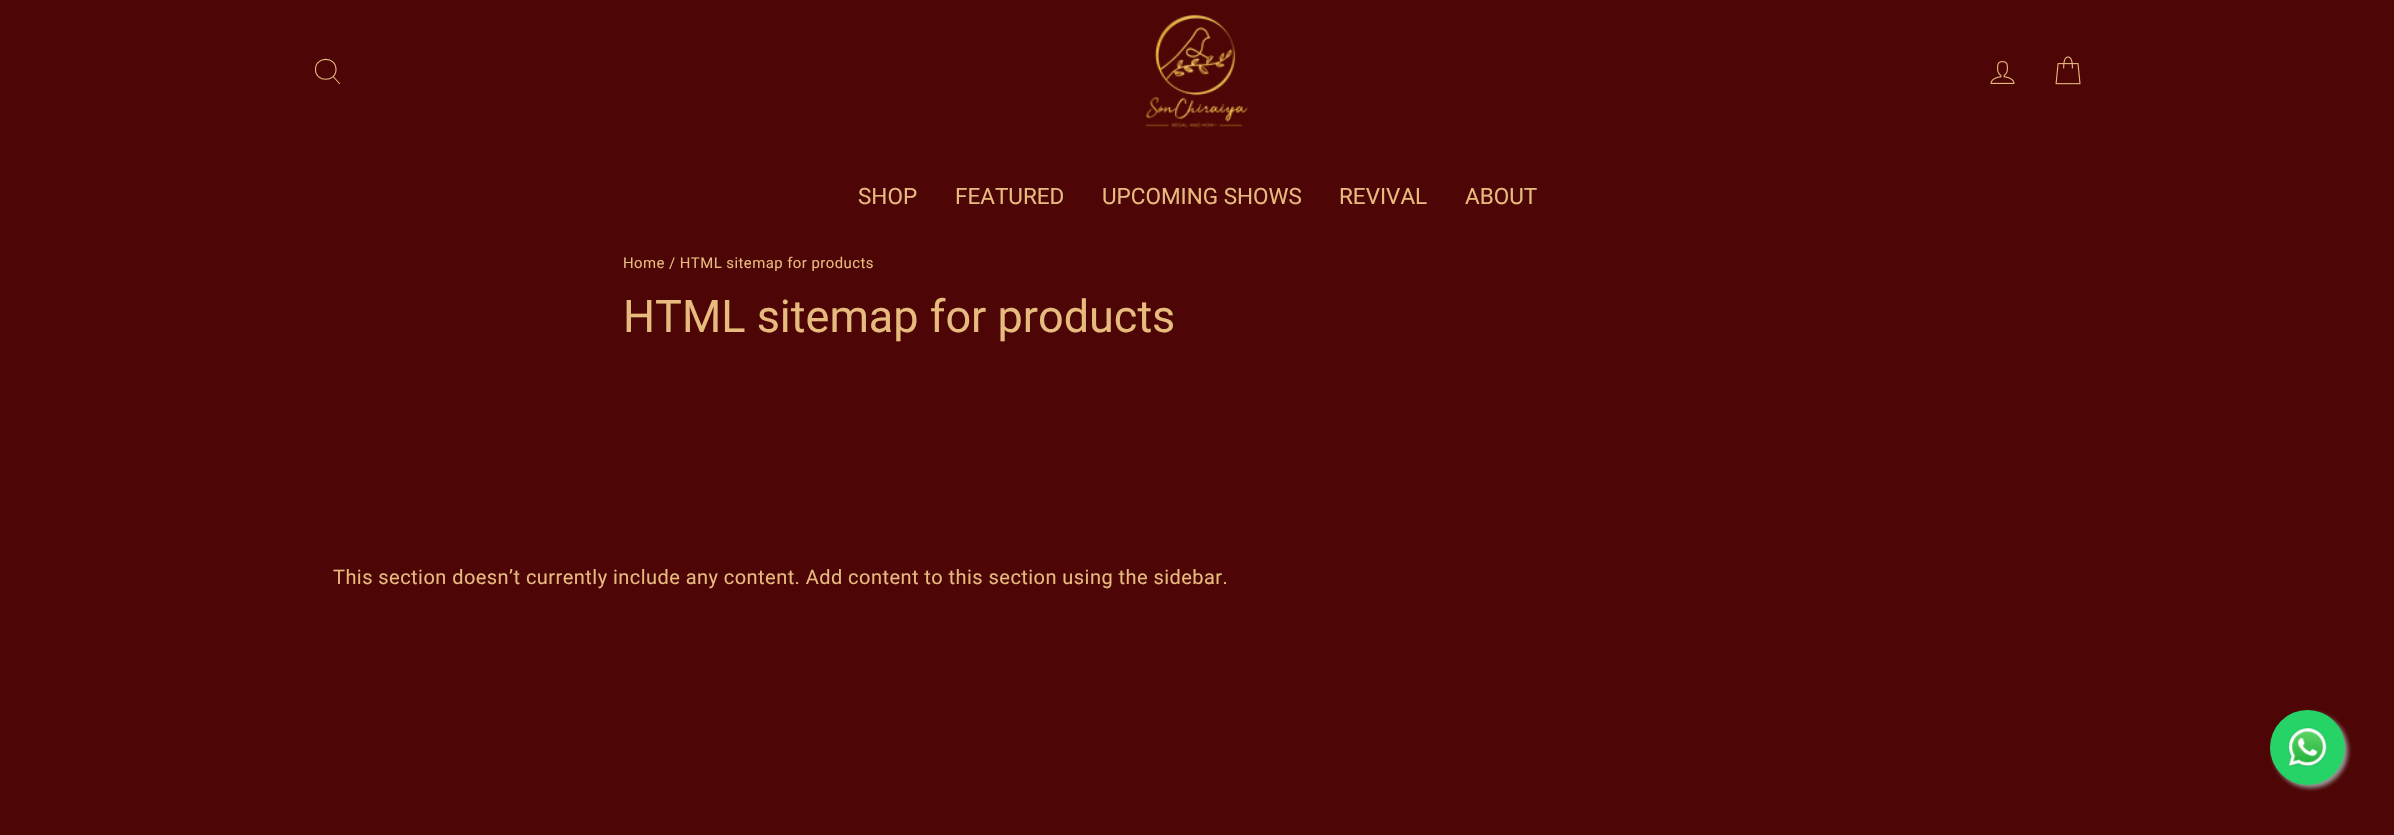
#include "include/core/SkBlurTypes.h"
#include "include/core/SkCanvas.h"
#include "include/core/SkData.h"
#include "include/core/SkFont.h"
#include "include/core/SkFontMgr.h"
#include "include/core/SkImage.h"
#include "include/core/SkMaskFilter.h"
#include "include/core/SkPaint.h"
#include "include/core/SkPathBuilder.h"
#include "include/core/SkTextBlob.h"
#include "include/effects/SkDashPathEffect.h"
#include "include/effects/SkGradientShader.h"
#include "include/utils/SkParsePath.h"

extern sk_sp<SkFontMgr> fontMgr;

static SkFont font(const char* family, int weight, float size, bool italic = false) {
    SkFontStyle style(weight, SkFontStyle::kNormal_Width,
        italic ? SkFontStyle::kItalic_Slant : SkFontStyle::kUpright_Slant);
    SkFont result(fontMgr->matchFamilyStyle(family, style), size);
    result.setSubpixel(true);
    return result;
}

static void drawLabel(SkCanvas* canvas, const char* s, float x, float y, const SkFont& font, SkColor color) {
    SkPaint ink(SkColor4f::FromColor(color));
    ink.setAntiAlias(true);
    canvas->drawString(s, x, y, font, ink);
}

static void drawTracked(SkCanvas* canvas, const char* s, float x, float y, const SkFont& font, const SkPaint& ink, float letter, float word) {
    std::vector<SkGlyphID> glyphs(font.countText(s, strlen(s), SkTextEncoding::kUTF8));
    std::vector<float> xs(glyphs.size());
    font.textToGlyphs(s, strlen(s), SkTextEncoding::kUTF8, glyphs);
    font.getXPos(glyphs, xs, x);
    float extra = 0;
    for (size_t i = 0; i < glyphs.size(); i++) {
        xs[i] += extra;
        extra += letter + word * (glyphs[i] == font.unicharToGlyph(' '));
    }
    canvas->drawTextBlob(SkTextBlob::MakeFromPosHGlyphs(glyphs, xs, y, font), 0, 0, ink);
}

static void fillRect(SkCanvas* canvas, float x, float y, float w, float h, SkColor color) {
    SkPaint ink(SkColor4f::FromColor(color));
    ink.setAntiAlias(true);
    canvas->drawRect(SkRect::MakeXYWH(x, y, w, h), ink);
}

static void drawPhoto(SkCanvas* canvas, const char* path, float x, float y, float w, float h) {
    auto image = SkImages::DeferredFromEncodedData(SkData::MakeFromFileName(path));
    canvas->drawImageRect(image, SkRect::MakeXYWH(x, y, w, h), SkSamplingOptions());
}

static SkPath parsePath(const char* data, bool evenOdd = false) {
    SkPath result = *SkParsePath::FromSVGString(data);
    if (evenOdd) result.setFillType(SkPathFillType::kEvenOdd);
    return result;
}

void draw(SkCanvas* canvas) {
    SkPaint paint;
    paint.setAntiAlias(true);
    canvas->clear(0xFF4D0505);
    paint.setColor(0x33000000);
    paint.setMaskFilter(SkMaskFilter::MakeBlur(kNormal_SkBlurStyle, 0.5f));
    canvas->drawRect(SkRect::MakeXYWH(0, -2, 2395, 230), paint);
    paint.setMaskFilter(nullptr);
    fillRect(canvas, 0, 0, 2394, 228, 0xFF4D0505);
    paint.setStroke(true);
    paint.setStrokeWidth(1.1f);
    paint.setStrokeCap(SkPaint::kRound_Cap);
    paint.setStrokeJoin(SkPaint::kRound_Join);
    paint.setColor(0xFFE7BB7E);
    canvas->drawPath(parsePath("M336 69.5C336 82.5 315.5 82.5 315.5 69.5C315.5 56 336 56 336 69.5ZM339.5 83.5L333 76.5"), paint);
    drawPhoto(canvas, "assets/img1.png", 1145, 14, 103, 114);
    drawPhoto(canvas, "assets/img2.png", 1990, 61, 25, 23);
    drawPhoto(canvas, "assets/img3.png", 2055, 56, 26, 29);
    SkFont font1 = font("Roboto", 400, 22.5f);
    drawLabel(canvas, "SHOP", 858, 204, font1, 0xFFE7BB7E);
    drawLabel(canvas, "FEATURED", 955, 204, font1, 0xFFE7BB7E);
    drawLabel(canvas, "UPCOMING SHOWS", 1102, 204, font1, 0xFFE7BB7E);
    drawLabel(canvas, "REVIVAL", 1339, 204, font1, 0xFFE7BB7E);
    drawLabel(canvas, "ABOUT", 1465, 204, font1, 0xFFE7BB7E);
    SkFont font2 = font("Roboto", 400, 14.9f);
    paint.setStroke(false);
    drawTracked(canvas, "Home / HTML sitemap for products", 623, 268, font2, paint, 0.45f, 0);
    SkFont font3 = font("Roboto", 400, 45);
    drawLabel(canvas, "HTML sitemap for products", 623, 332, font3, 0xFFE7BB7E);
    SkFont font4 = font("Roboto", 400, 20);
    drawTracked(canvas, "This section doesn’t currently include any content. Add content to this section using the sidebar.", 333, 584, font4, paint, 0.45f, 0);
    paint.setColor(0xFF999999);
    paint.setMaskFilter(SkMaskFilter::MakeBlur(kNormal_SkBlurStyle, 2));
    canvas->drawRoundRect(SkRect::MakeXYWH(2273, 713, 75, 75), 37.5f, 37.5f, paint);
    paint.setMaskFilter(nullptr);
    paint.setColor(0xFF25D366);
    canvas->drawCircle(2307.5f, 747.5f, 37.5f, paint);
    drawPhoto(canvas, "assets/img4.png", 2288, 727, 40, 40);
}
